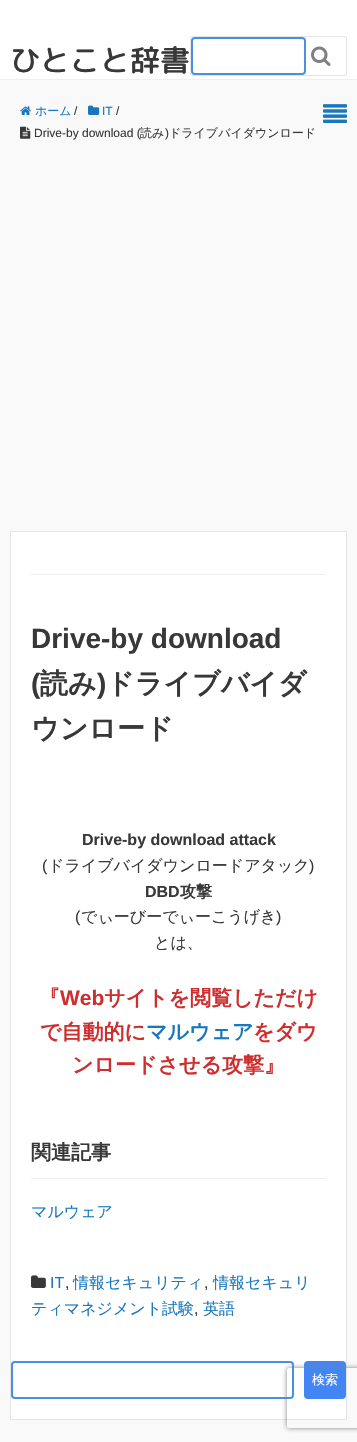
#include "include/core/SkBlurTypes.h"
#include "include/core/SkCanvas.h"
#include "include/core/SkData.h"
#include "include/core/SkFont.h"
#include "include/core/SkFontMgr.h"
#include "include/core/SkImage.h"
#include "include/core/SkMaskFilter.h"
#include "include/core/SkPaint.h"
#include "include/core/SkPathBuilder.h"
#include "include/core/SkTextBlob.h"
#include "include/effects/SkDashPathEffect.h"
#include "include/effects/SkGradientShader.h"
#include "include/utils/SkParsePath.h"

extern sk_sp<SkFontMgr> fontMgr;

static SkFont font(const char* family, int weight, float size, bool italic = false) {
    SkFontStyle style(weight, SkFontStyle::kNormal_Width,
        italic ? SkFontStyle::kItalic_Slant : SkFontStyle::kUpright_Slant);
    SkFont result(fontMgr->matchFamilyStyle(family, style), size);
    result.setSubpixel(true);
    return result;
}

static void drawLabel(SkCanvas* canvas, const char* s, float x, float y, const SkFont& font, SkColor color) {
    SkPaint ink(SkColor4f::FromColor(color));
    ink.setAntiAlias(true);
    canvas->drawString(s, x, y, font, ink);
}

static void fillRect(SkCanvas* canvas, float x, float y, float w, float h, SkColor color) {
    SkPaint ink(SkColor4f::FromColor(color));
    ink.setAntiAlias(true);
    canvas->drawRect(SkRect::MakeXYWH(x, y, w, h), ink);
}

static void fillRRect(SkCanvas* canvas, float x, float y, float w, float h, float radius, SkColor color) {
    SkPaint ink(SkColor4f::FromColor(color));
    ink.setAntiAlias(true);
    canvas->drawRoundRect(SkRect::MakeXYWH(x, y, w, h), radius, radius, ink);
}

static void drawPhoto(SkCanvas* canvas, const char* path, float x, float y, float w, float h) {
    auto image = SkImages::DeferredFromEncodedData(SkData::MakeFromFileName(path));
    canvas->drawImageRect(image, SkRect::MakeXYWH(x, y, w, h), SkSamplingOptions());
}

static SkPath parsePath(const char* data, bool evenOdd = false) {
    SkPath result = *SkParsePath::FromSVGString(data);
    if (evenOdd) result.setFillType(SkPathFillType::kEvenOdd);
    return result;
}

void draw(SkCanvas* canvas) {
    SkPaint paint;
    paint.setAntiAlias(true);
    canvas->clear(0xFFF9F9F9);
    fillRect(canvas, 0, 0, 357, 79, 0xFFFFFFFF);
    fillRect(canvas, 0, 79, 357, 1, 0xFFEFEFEF);
    SkFont font1 = font("Rounded Mplus 1c", 500, 30);
    drawLabel(canvas, "ひとこと辞書", 10, 71, font1, 0xFF383838);
    paint.setStroke(true);
    paint.setStrokeWidth(1);
    paint.setColor(0xFFE5E5E5);
    canvas->drawRoundRect(SkRect::MakeXYWH(190.5f, 36.5f, 156, 39), 1.5f, 1.5f, paint);
    paint.setStrokeWidth(2);
    paint.setColor(0xFF4A90E2);
    canvas->drawRoundRect(SkRect::MakeXYWH(192, 38, 113, 36), 3, 3, paint);
    drawPhoto(canvas, "assets/img1.png", 311, 46, 20, 20);
    drawPhoto(canvas, "assets/img2.png", 323, 104, 24, 19);
    drawPhoto(canvas, "assets/img3.png", 20, 106, 11, 9);
    SkFont font2 = font("WenQuanYi Zen Hei", 500, 12);
    drawLabel(canvas, "ホーム", 35, 115, font2, 0xFF1877BD);
    SkFont font3 = font("Liberation Sans", 400, 12);
    drawLabel(canvas, "/", 74, 115, font3, 0xFF383838);
    drawPhoto(canvas, "assets/img4.png", 88, 105, 12, 10);
    drawLabel(canvas, "IT", 102, 115, font3, 0xFF1877BD);
    drawLabel(canvas, "/", 116, 115, font3, 0xFF383838);
    drawPhoto(canvas, "assets/img5.png", 20, 126, 11, 13);
    drawLabel(canvas, "Drive-by download (", 34, 137, font3, 0xFF383838);
    drawLabel(canvas, "読み", 140, 137, font2, 0xFF383838);
    drawLabel(canvas, ")", 165, 137, font3, 0xFF383838);
    drawLabel(canvas, "ドライブバイダウンロード", 169, 137, font2, 0xFF383838);
    paint.setStroke(false);
    paint.setColor(0xFFFFFFFF);
    canvas->drawRect(SkRect::MakeXYWH(10.5f, 531.5f, 336, 888), paint);
    paint.setStroke(true);
    paint.setStrokeWidth(1);
    paint.setColor(0xFFE5E5E5);
    canvas->drawRect(SkRect::MakeXYWH(10.5f, 531.5f, 336, 888), paint);
    fillRect(canvas, 31, 574, 295, 1, 0xFFEFEFEF);
    SkFont font4 = font("Liberation Sans", 700, 28);
    drawLabel(canvas, "Drive-by download", 31, 648, font4, 0xFF383838);
    drawLabel(canvas, "(", 31, 693, font4, 0xFF383838);
    SkFont font5 = font("WenQuanYi Zen Hei", 700, 28);
    drawLabel(canvas, "読み", 40, 693, font5, 0xFF383838);
    drawLabel(canvas, ")", 97, 693, font4, 0xFF383838);
    drawLabel(canvas, "ドライブバイダ", 106, 693, font5, 0xFF383838);
    drawLabel(canvas, "ウンロード", 31, 738, font5, 0xFF383838);
    SkFont font6 = font("Liberation Sans", 700, 16);
    drawLabel(canvas, "Drive-by download attack", 82, 845, font6, 0xFF383838);
    SkFont font7 = font("Liberation Sans", 400, 16);
    drawLabel(canvas, "(", 42, 871, font7, 0xFF383838);
    SkFont font8 = font("WenQuanYi Zen Hei", 500, 16);
    drawLabel(canvas, "ドライブバイダウンロードアタック", 48, 871, font8, 0xFF383838);
    drawLabel(canvas, ")", 309, 871, font7, 0xFF383838);
    drawLabel(canvas, "DBD", 145, 897, font6, 0xFF383838);
    SkFont font9 = font("WenQuanYi Zen Hei", 700, 16);
    drawLabel(canvas, "攻撃", 180, 897, font9, 0xFF383838);
    drawLabel(canvas, "(", 75, 922, font7, 0xFF383838);
    drawLabel(canvas, "でぃーびーでぃーこうげき", 81, 922, font8, 0xFF383838);
    drawLabel(canvas, ")", 276, 922, font7, 0xFF383838);
    drawLabel(canvas, "とは、", 154, 948, font8, 0xFF383838);
    SkFont font10 = font("WenQuanYi Zen Hei", 700, 21);
    drawLabel(canvas, "『", 39, 1005, font10, 0xFFCF2E2E);
    SkFont font11 = font("Liberation Sans", 700, 21);
    drawLabel(canvas, "Web", 60, 1005, font11, 0xFFCF2E2E);
    drawLabel(canvas, "サイトを閲覧しただけ", 104, 1005, font10, 0xFFCF2E2E);
    drawLabel(canvas, "で自動的に", 40, 1039, font10, 0xFFCF2E2E);
    drawLabel(canvas, "マルウェア", 146, 1039, font10, 0xFF1877BD);
    drawLabel(canvas, "をダウ", 253, 1039, font10, 0xFFCF2E2E);
    drawLabel(canvas, "ンロードさせる攻撃』", 72, 1072, font10, 0xFFCF2E2E);
    fillRect(canvas, 31, 1178, 295, 1, 0xFFEFEFEF);
    SkFont font12 = font("WenQuanYi Zen Hei", 700, 20);
    drawLabel(canvas, "関連記事", 31, 1159, font12, 0xFF383838);
    drawLabel(canvas, "マルウェア", 31, 1217, font8, 0xFF1877BD);
    drawPhoto(canvas, "assets/img6.png", 31, 1275, 15, 13);
    drawLabel(canvas, "IT", 50, 1288, font7, 0xFF1877BD);
    drawLabel(canvas, "情報セキュリティ", 73, 1288, font8, 0xFF1877BD);
    drawLabel(canvas, "情報セキュリ", 213, 1288, font8, 0xFF1877BD);
    drawLabel(canvas, ",", 65, 1288, font7, 0xFF383838);
    drawLabel(canvas, ",", 204, 1288, font7, 0xFF383838);
    drawLabel(canvas, "ティマネジメント試験", 31, 1314, font8, 0xFF1877BD);
    drawLabel(canvas, ",", 194, 1314, font7, 0xFF383838);
    drawLabel(canvas, "英語", 203, 1314, font8, 0xFF1877BD);
    paint.setStrokeWidth(2);
    paint.setColor(0xFF4A90E2);
    canvas->drawRoundRect(SkRect::MakeXYWH(12, 1362, 281, 36), 3, 3, paint);
    fillRRect(canvas, 304, 1361, 42, 38, 4, 0xFF4285F4);
    SkFont font13 = font("WenQuanYi Zen Hei", 500, 13);
    drawLabel(canvas, "検索", 312, 1384, font13, 0xFFFFFFFF);
    canvas->save();
    canvas->clipPath(parsePath("M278 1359H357V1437H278ZM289 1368H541C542 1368 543 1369 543 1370V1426C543 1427 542 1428 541 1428H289C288 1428 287 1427 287 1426V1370C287 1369 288 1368 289 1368Z", true), true);
    paint.setStroke(false);
    paint.setColor(0xFF808080);
    paint.setMaskFilter(SkMaskFilter::MakeBlur(kNormal_SkBlurStyle, 2.5f));
    canvas->drawRoundRect(SkRect::MakeXYWH(287, 1368, 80, 60), 2, 2, paint);
    paint.setMaskFilter(nullptr);
    canvas->restore();
}
